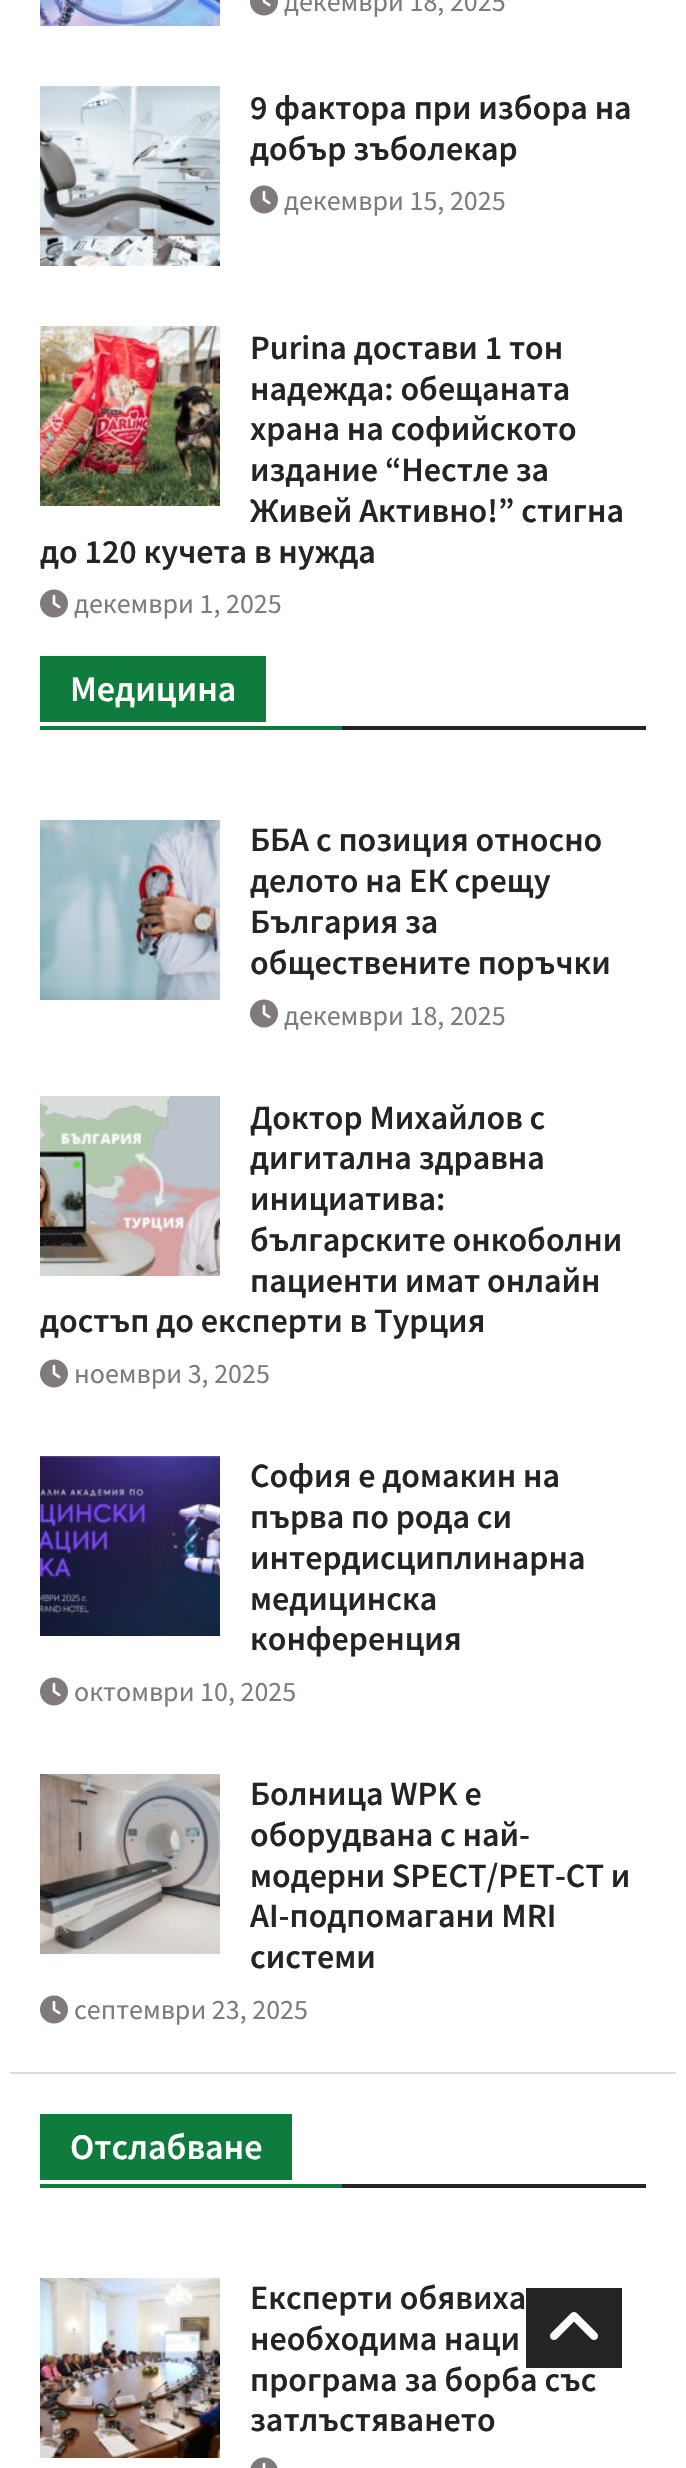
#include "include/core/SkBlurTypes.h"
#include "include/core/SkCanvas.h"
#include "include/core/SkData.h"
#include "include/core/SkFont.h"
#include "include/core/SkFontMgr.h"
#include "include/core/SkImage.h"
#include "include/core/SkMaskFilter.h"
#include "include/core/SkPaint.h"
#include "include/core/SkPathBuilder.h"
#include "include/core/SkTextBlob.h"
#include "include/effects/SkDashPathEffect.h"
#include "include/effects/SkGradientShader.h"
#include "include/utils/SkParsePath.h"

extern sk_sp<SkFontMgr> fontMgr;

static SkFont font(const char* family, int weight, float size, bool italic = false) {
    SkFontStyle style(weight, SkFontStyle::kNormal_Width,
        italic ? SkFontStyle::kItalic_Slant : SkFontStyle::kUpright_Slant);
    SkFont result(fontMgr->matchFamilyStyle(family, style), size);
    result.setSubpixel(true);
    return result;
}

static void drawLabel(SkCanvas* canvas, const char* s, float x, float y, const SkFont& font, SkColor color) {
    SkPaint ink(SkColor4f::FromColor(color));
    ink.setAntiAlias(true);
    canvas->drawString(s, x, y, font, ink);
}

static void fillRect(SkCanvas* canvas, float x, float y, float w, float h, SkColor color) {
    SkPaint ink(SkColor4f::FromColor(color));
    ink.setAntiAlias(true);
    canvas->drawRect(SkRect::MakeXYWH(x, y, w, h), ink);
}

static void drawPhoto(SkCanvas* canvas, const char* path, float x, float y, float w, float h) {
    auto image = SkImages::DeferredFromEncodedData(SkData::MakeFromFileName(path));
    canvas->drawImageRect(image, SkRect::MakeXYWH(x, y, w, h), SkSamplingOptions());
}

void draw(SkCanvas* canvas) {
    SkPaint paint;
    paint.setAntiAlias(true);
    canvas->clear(0xFFFFFFFF);
    fillRect(canvas, 10, 2072, 666, 2, 0xFFDDDDDD);
    drawPhoto(canvas, "assets/img1.png", 40, 0, 180, 26);
    drawPhoto(canvas, "assets/img2.png", 250, 0, 28, 16);
    SkFont font1 = font("Source Sans Pro", 400, 28);
    drawLabel(canvas, "декември 18, 2025", 284, 11, font1, 0xFF807A7A);
    drawPhoto(canvas, "assets/img3.png", 40, 86, 180, 180);
    SkFont font2 = font("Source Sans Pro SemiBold", 600, 34);
    drawLabel(canvas, "9 фактора при избора на", 250, 119, font2, 0xFF242424);
    drawLabel(canvas, "добър зъболекар", 250, 160, font2, 0xFF242424);
    drawPhoto(canvas, "assets/img4.png", 250, 185, 28, 29);
    drawLabel(canvas, "декември 15, 2025", 284, 210, font1, 0xFF807A7A);
    drawPhoto(canvas, "assets/img5.png", 40, 326, 180, 180);
    drawLabel(canvas, "Purina достави 1 тон", 250, 359, font2, 0xFF242424);
    drawLabel(canvas, "надежда: обещаната", 250, 400, font2, 0xFF242424);
    drawLabel(canvas, "храна на софийското", 250, 440, font2, 0xFF242424);
    drawLabel(canvas, "издание “Нестле за", 250, 481, font2, 0xFF242424);
    drawLabel(canvas, "Живей Активно!” стигна", 250, 522, font2, 0xFF242424);
    drawLabel(canvas, "до 120 кучета в нужда", 40, 563, font2, 0xFF242424);
    drawPhoto(canvas, "assets/img4.png", 40, 589, 28, 29);
    drawLabel(canvas, "декември 1, 2025", 74, 613, font1, 0xFF807A7A);
    fillRect(canvas, 342, 726, 304, 4, 0xFF242424);
    fillRect(canvas, 40, 656, 226, 66, 0xFF0F7C3E);
    SkFont font3 = font("Source Sans Pro SemiBold", 600, 36);
    drawLabel(canvas, "Медицина", 70, 701, font3, 0xFFFFFFFF);
    fillRect(canvas, 40, 726, 302, 4, 0xFF0F7C3E);
    drawPhoto(canvas, "assets/img6.png", 40, 820, 180, 180);
    drawLabel(canvas, "ББА с позиция относно", 250, 851, font2, 0xFF242424);
    drawLabel(canvas, "делото на ЕК срещу", 250, 892, font2, 0xFF242424);
    drawLabel(canvas, "България за", 250, 933, font2, 0xFF242424);
    drawLabel(canvas, "обществените поръчки", 250, 974, font2, 0xFF242424);
    drawPhoto(canvas, "assets/img4.png", 250, 999, 28, 29);
    drawLabel(canvas, "декември 18, 2025", 284, 1025, font1, 0xFF807A7A);
    drawPhoto(canvas, "assets/img7.png", 40, 1096, 180, 180);
    drawLabel(canvas, "Доктор Михайлов с", 250, 1129, font2, 0xFF242424);
    drawLabel(canvas, "дигитална здравна", 250, 1169, font2, 0xFF242424);
    drawLabel(canvas, "инициатива:", 250, 1210, font2, 0xFF242424);
    drawLabel(canvas, "българските онкоболни", 250, 1251, font2, 0xFF242424);
    drawLabel(canvas, "пациенти имат онлайн", 250, 1292, font2, 0xFF242424);
    drawLabel(canvas, "достъп до експерти в Турция", 40, 1332, font2, 0xFF242424);
    drawPhoto(canvas, "assets/img4.png", 40, 1359, 28, 29);
    drawLabel(canvas, "ноември 3, 2025", 74, 1383, font1, 0xFF807A7A);
    drawPhoto(canvas, "assets/img8.png", 40, 1456, 180, 180);
    drawLabel(canvas, "София е домакин на", 250, 1487, font2, 0xFF242424);
    drawLabel(canvas, "първа по рода си", 250, 1528, font2, 0xFF242424);
    drawLabel(canvas, "интердисциплинарна", 250, 1569, font2, 0xFF242424);
    drawLabel(canvas, "медицинска", 250, 1610, font2, 0xFF242424);
    drawLabel(canvas, "конференция", 250, 1650, font2, 0xFF242424);
    drawPhoto(canvas, "assets/img4.png", 40, 1677, 28, 29);
    drawLabel(canvas, "октомври 10, 2025", 74, 1701, font1, 0xFF807A7A);
    drawPhoto(canvas, "assets/img9.png", 40, 1774, 180, 180);
    drawLabel(canvas, "Болница WPK е", 250, 1805, font2, 0xFF242424);
    drawLabel(canvas, "оборудвана с най-", 250, 1846, font2, 0xFF242424);
    drawLabel(canvas, "модерни SPECT/PET-CT и", 250, 1887, font2, 0xFF242424);
    drawLabel(canvas, "AI-подпомагани MRI", 250, 1927, font2, 0xFF242424);
    drawLabel(canvas, "системи", 250, 1968, font2, 0xFF242424);
    drawPhoto(canvas, "assets/img4.png", 40, 1995, 28, 29);
    drawLabel(canvas, "септември 23, 2025", 74, 2019, font1, 0xFF807A7A);
    fillRect(canvas, 342, 2184, 304, 4, 0xFF242424);
    fillRect(canvas, 40, 2114, 252, 66, 0xFF0F7C3E);
    drawLabel(canvas, "Отслабване", 70, 2159, font3, 0xFFFFFFFF);
    fillRect(canvas, 40, 2184, 302, 4, 0xFF0F7C3E);
    drawPhoto(canvas, "assets/img10.png", 40, 2278, 180, 180);
    drawLabel(canvas, "Експерти обявиха", 250, 2309, font2, 0xFF242424);
    drawLabel(canvas, "необходима наци", 250, 2350, font2, 0xFF242424);
    drawLabel(canvas, "програма за борба със", 250, 2391, font2, 0xFF242424);
    drawLabel(canvas, "затлъстяването", 250, 2431, font2, 0xFF242424);
    drawPhoto(canvas, "assets/img11.png", 250, 2457, 28, 11);
    fillRect(canvas, 526, 2288, 96, 80, 0xFF242424);
    drawPhoto(canvas, "assets/img12.png", 550, 2312, 48, 28);
}
